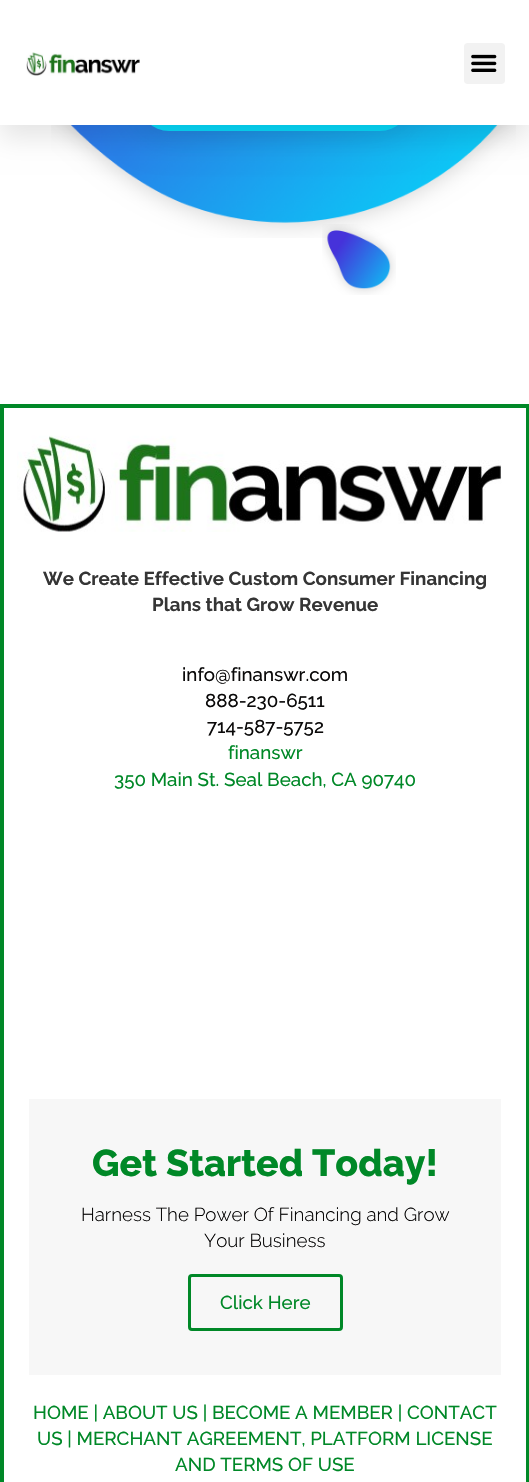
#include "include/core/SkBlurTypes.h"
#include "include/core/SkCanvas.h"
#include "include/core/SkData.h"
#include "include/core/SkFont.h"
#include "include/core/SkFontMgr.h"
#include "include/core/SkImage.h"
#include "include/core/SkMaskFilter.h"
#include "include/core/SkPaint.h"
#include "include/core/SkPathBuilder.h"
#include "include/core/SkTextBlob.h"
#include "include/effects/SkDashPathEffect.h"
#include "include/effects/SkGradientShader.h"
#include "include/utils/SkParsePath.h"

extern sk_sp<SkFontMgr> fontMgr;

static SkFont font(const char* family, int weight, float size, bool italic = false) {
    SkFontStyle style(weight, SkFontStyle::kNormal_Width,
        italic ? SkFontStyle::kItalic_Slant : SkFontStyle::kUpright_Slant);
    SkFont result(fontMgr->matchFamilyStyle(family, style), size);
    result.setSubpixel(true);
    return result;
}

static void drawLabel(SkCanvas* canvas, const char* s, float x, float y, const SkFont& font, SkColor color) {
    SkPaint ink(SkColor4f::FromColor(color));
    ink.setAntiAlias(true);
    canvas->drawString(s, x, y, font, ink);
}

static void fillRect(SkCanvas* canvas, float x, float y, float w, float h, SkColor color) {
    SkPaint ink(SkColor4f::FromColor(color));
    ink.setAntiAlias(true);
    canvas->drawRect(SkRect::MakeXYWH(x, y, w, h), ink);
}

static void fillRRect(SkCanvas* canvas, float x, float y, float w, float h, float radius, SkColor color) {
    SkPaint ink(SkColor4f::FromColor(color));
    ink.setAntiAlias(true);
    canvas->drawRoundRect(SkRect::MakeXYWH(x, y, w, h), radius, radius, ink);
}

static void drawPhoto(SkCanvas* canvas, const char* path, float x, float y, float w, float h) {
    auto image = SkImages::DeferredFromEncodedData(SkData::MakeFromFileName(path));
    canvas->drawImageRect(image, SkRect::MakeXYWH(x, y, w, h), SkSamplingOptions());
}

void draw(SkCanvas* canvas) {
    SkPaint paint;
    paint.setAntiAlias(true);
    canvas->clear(0xFFFFFFFF);
    drawPhoto(canvas, "assets/img3.png", 51, 125, 465, 113);
    paint.setColor(0x1A000000);
    paint.setMaskFilter(SkMaskFilter::MakeBlur(kNormal_SkBlurStyle, 19));
    canvas->drawRoundRect(SkRect::MakeXYWH(139, 71, 271, 60), 30, 30, paint);
    paint.setMaskFilter(nullptr);
    fillRRect(canvas, 139, 71, 271, 60, 30, 0xFF06D9FA);
    paint.setMaskFilter(SkMaskFilter::MakeBlur(kNormal_SkBlurStyle, 12.5f));
    canvas->drawRect(SkRect::MakeXYWH(0, 13, 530, 125), paint);
    paint.setMaskFilter(nullptr);
    fillRect(canvas, 0, 0, 529, 125, 0xFFFFFFFF);
    drawPhoto(canvas, "assets/img1.png", 26, 52, 114, 24);
    fillRRect(canvas, 464, 43, 41, 41, 4, 0xFFF2F2F2);
    drawPhoto(canvas, "assets/img2.png", 471, 54, 26, 18);
    drawPhoto(canvas, "assets/img4.png", 322, 224, 74, 71);
    paint.setStroke(true);
    paint.setStrokeWidth(4);
    paint.setColor(0xFF008827);
    canvas->drawRect(SkRect::MakeXYWH(2, 406, 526, 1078), paint);
    drawPhoto(canvas, "assets/img5.png", 17, 435, 485, 97);
    SkFont font1 = font("Raleway", 700, 18.75f);
    drawLabel(canvas, "We Create Effective Custom Consumer Financing", 43, 585, font1, 0xFF353535);
    drawLabel(canvas, "Plans that Grow Revenue", 152, 611, font1, 0xFF353535);
    SkFont font2 = font("Raleway", 500, 18.75f);
    drawLabel(canvas, "info@finanswr.com", 182, 681, font2, 0xFF0A0909);
    drawLabel(canvas, "888-230-6511", 205, 707, font2, 0xFF0A0909);
    drawLabel(canvas, "714-587-5752", 207, 733, font2, 0xFF0A0909);
    drawLabel(canvas, "finanswr", 228, 759, font2, 0xFF008827);
    drawLabel(canvas, "350 Main St. Seal Beach, CA 90740", 114, 786, font2, 0xFF008827);
    fillRect(canvas, 29, 1099, 472, 276, 0xFFF7F7F7);
    SkFont font3 = font("Raleway", 800, 37.5f);
    drawLabel(canvas, "Get Started Today!", 92, 1176, font3, 0xFF008827);
    SkFont font4 = font("Raleway", 300, 18.75f);
    drawLabel(canvas, "Harness The Power Of Financing and Grow", 81, 1221, font4, 0xFF010000);
    drawLabel(canvas, "Your Business", 204, 1247, font4, 0xFF010000);
    paint.setStrokeWidth(3);
    canvas->drawRoundRect(SkRect::MakeXYWH(189.5f, 1275.5f, 152, 54), 2.5f, 2.5f, paint);
    drawLabel(canvas, "Click Here", 220, 1309, font2, 0xFF008827);
    drawLabel(canvas, "HOME | ABOUT US | BECOME A MEMBER | CONTACT", 33, 1419, font2, 0xFF008827);
    drawLabel(canvas, "US | MERCHANT AGREEMENT, PLATFORM LICENSE", 37, 1445, font2, 0xFF008827);
    drawLabel(canvas, "AND TERMS OF USE", 175, 1471, font2, 0xFF008827);
}
